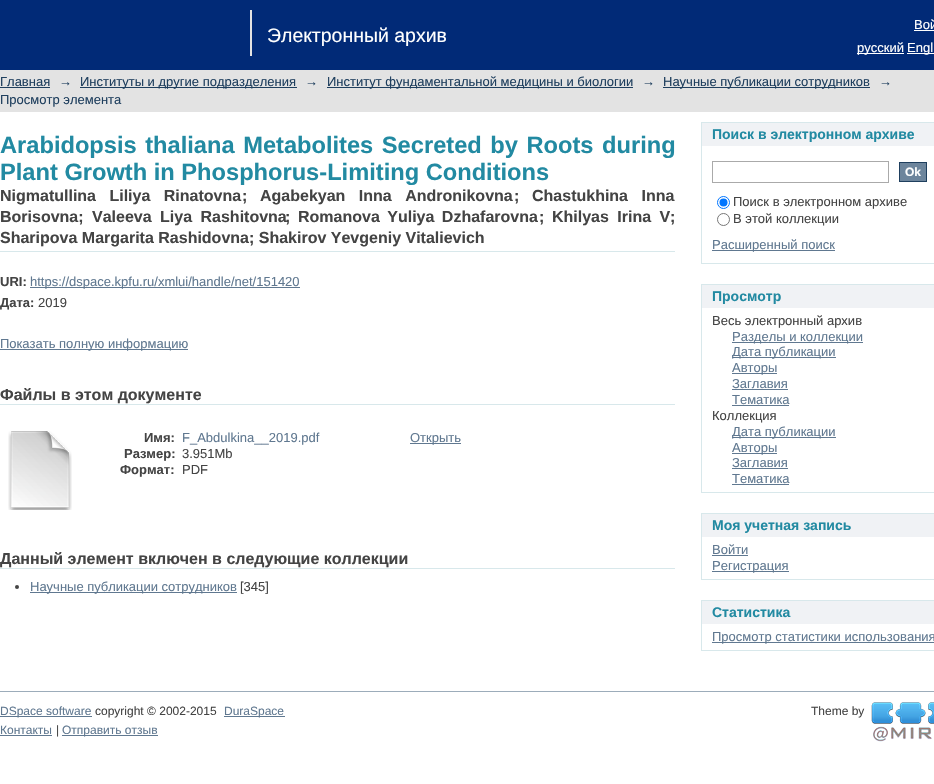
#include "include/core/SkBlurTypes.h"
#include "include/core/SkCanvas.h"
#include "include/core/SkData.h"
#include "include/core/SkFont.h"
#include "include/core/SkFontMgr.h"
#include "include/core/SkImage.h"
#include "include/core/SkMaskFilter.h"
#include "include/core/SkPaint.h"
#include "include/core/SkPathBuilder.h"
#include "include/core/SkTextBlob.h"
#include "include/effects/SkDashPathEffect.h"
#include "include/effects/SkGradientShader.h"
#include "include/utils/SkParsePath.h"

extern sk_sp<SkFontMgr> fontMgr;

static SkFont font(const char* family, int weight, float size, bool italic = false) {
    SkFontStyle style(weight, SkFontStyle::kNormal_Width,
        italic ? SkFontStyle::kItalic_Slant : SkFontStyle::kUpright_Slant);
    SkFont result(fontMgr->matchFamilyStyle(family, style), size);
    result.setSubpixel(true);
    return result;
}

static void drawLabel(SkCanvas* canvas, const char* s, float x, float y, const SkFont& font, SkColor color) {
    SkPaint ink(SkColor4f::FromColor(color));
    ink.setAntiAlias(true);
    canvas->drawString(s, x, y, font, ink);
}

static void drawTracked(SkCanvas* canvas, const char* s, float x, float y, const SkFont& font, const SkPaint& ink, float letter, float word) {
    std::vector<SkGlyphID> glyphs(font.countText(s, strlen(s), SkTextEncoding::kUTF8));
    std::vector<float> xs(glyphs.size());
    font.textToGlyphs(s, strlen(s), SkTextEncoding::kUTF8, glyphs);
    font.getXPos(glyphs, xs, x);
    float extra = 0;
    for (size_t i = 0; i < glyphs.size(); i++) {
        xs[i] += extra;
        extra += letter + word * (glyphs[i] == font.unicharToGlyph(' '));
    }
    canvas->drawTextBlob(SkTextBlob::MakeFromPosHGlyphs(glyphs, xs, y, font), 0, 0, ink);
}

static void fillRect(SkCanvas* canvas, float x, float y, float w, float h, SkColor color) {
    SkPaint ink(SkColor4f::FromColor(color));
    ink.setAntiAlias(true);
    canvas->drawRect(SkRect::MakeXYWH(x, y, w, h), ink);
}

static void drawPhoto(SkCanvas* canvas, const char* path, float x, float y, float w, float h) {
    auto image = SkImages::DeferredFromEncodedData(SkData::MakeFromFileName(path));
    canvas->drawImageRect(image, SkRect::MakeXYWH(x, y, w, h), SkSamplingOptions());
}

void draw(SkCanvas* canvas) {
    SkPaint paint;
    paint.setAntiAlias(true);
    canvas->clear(0xFFFFFFFF);
    fillRect(canvas, 0, 0, 934, 70, 0xFF012A77);
    SkFont font1 = font("Liberation Sans", 400, 13);
    drawLabel(canvas, "Вой", 914, 29, font1, 0xFFFFFFFF);
    fillRect(canvas, 914, 30, 20, 1, 0xFFFFFFFF);
    fillRect(canvas, 250, 10, 2, 46, 0xFFE3E3E3);
    SkFont font2 = font("Liberation Sans", 400, 19.5f);
    drawLabel(canvas, "Электронный архив", 267, 42, font2, 0xFFFFFFFF);
    fillRect(canvas, 857, 53, 47, 1, 0xFFFFFFFF);
    drawLabel(canvas, "русский", 857, 52, font1, 0xFFFFFFFF);
    fillRect(canvas, 907, 53, 27, 1, 0xFFFFFFFF);
    drawLabel(canvas, "Engl", 907, 52, font1, 0xFFFFFFFF);
    fillRect(canvas, 0, 70, 934, 42, 0xFFE3E3E3);
    drawLabel(canvas, "Главная", 0, 86, font1, 0xFF1F3F5E);
    fillRect(canvas, 0, 87, 50, 1, 0xFF1F3F5E);
    drawLabel(canvas, "→", 59, 86, font1, 0xFF1F3F5E);
    fillRect(canvas, 80, 87, 217, 1, 0xFF1F3F5E);
    drawLabel(canvas, "Институты и другие подразделения", 80, 86, font1, 0xFF1F3F5E);
    drawLabel(canvas, "→", 305, 86, font1, 0xFF1F3F5E);
    fillRect(canvas, 327, 87, 306, 1, 0xFF1F3F5E);
    drawLabel(canvas, "Институт фундаментальной медицины и биологии", 327, 86, font1, 0xFF1F3F5E);
    drawLabel(canvas, "→", 642, 86, font1, 0xFF1F3F5E);
    fillRect(canvas, 663, 87, 207, 1, 0xFF1F3F5E);
    drawLabel(canvas, "Научные публикации сотрудников", 663, 86, font1, 0xFF1F3F5E);
    drawLabel(canvas, "→", 879, 86, font1, 0xFF1F3F5E);
    drawLabel(canvas, "Просмотр элемента", 0, 104, font1, 0xFF1F3F5E);
    SkFont font3 = font("Liberation Sans", 700, 23.65f);
    paint.setColor(0xFF228AA2);
    drawTracked(canvas, "Arabidopsis thaliana Metabolites Secreted by Roots during", 0, 153, font3, paint, 0, 2);
    drawLabel(canvas, "Plant Growth in Phosphorus-Limiting Conditions", 0, 180, font3, 0xFF228AA2);
    fillRect(canvas, 0, 251, 675, 1, 0xFFD8E8EB);
    SkFont font4 = font("Liberation Sans", 700, 16);
    paint.setColor(0xFF444444);
    drawTracked(canvas, "Nigmatullina Liliya Rinatovna", 0, 201, font4, paint, 0, 9);
    drawLabel(canvas, ";", 242, 201, font4, 0xFF444444);
    drawTracked(canvas, "Agabekyan Inna Andronikovna", 260, 201, font4, paint, 0, 9);
    drawLabel(canvas, ";", 514, 201, font4, 0xFF444444);
    drawTracked(canvas, "Chastukhina Inna", 532, 201, font4, paint, 0, 9);
    drawLabel(canvas, "Borisovna;", 0, 222, font4, 0xFF444444);
    drawTracked(canvas, "Valeeva Liya Rashitovna", 92, 222, font4, paint, 0, 4);
    drawLabel(canvas, ";", 285, 222, font4, 0xFF444444);
    drawTracked(canvas, "Romanova Yuliya Dzhafarovna", 298, 222, font4, paint, 0, 3);
    drawLabel(canvas, ";", 539, 222, font4, 0xFF444444);
    drawTracked(canvas, "Khilyas Irina V", 552, 222, font4, paint, 0, 4);
    drawLabel(canvas, ";", 670, 222, font4, 0xFF444444);
    drawLabel(canvas, "Sharipova Margarita Rashidovna; Shakirov Yevgeniy Vitalievich", 0, 243, font4, 0xFF444444);
    SkFont font5 = font("Liberation Sans", 700, 13);
    drawLabel(canvas, "URI:", 0, 286, font5, 0xFF444444);
    fillRect(canvas, 30, 287, 270, 1, 0xFF607890);
    drawLabel(canvas, "https://dspace.kpfu.ru/xmlui/handle/net/151420", 30, 286, font1, 0xFF607890);
    drawLabel(canvas, "Дата:", 0, 307, font5, 0xFF444444);
    drawLabel(canvas, "2019", 38, 307, font1, 0xFF444444);
    fillRect(canvas, 0, 349, 188, 1, 0xFF607890);
    drawLabel(canvas, "Показать полную информацию", 0, 348, font1, 0xFF607890);
    fillRect(canvas, 0, 404, 675, 1, 0xFFD8E8EB);
    drawLabel(canvas, "Файлы в этом документе", 0, 400, font4, 0xFF444444);
    drawPhoto(canvas, "assets/img1.png", 8, 431, 64, 79);
    drawLabel(canvas, "Имя:", 144, 442, font5, 0xFF444444);
    drawLabel(canvas, "F_Abdulkina__2019.pdf", 182, 442, font1, 0xFF607890);
    drawLabel(canvas, "Размер:", 124, 458, font5, 0xFF444444);
    drawLabel(canvas, "3.951Mb", 182, 458, font1, 0xFF444444);
    drawLabel(canvas, "Формат:", 120, 474, font5, 0xFF444444);
    drawLabel(canvas, "PDF", 182, 474, font1, 0xFF444444);
    fillRect(canvas, 410, 443, 51, 1, 0xFF607890);
    drawLabel(canvas, "Открыть", 410, 442, font1, 0xFF607890);
    fillRect(canvas, 0, 568, 675, 1, 0xFFD8E8EB);
    drawLabel(canvas, "Данный элемент включен в следующие коллекции", 0, 564, font4, 0xFF444444);
    canvas->drawCircle(17, 587, 2, paint);
    fillRect(canvas, 30, 592, 207, 1, 0xFF607890);
    drawLabel(canvas, "Научные публикации сотрудников", 30, 591, font1, 0xFF607890);
    drawLabel(canvas, "[345]", 240, 591, font1, 0xFF444444);
    fillRect(canvas, 702, 123, 232, 23, 0xFFF0F2F5);
    fillRect(canvas, 701, 122, 233, 1, 0xFFD8E8EB);
    fillRect(canvas, 701, 122, 1, 24, 0xFFD8E8EB);
    SkFont font6 = font("Liberation Sans", 700, 14);
    drawLabel(canvas, "Поиск в электронном архиве", 712, 139, font6, 0xFF228AA2);
    fillRect(canvas, 701, 263, 233, 1, 0xFFD8E8EB);
    fillRect(canvas, 701, 146, 1, 118, 0xFFD8E8EB);
    paint.setStroke(true);
    paint.setStrokeWidth(1);
    paint.setColor(0xFFAAAAAA);
    canvas->drawRect(SkRect::MakeXYWH(712.5f, 161.5f, 176, 21), paint);
    paint.setStroke(false);
    paint.setColor(0xFF6D859C);
    canvas->drawRect(SkRect::MakeXYWH(899.5f, 162.5f, 27, 19), paint);
    paint.setStroke(true);
    paint.setColor(0xFF1F3F5E);
    canvas->drawRect(SkRect::MakeXYWH(899.5f, 162.5f, 27, 19), paint);
    SkFont font7 = font("Liberation Sans", 700, 12);
    drawLabel(canvas, "Ok", 905, 176, font7, 0xFFFFFFFF);
    paint.setColor(0xFF0075FF);
    canvas->drawCircle(723.5f, 202.5f, 6, paint);
    paint.setStroke(false);
    canvas->drawCircle(723.5f, 202.5f, 4, paint);
    drawLabel(canvas, "Поиск в электронном архиве", 733, 206, font1, 0xFF444444);
    paint.setStroke(true);
    paint.setColor(0xFF767676);
    canvas->drawCircle(723.5f, 219.5f, 6, paint);
    drawLabel(canvas, "В этой коллекции", 733, 223, font1, 0xFF444444);
    fillRect(canvas, 712, 250, 123, 1, 0xFF607890);
    drawLabel(canvas, "Расширенный поиск", 712, 249, font1, 0xFF607890);
    fillRect(canvas, 702, 285, 232, 23, 0xFFF0F2F5);
    fillRect(canvas, 701, 284, 233, 1, 0xFFD8E8EB);
    fillRect(canvas, 701, 284, 1, 24, 0xFFD8E8EB);
    drawLabel(canvas, "Просмотр", 712, 301, font6, 0xFF228AA2);
    fillRect(canvas, 701, 492, 233, 1, 0xFFD8E8EB);
    fillRect(canvas, 701, 308, 1, 185, 0xFFD8E8EB);
    drawLabel(canvas, "Весь электронный архив", 712, 325, font1, 0xFF444444);
    fillRect(canvas, 732, 342, 131, 1, 0xFF607890);
    drawLabel(canvas, "Разделы и коллекции", 732, 341, font1, 0xFF607890);
    fillRect(canvas, 732, 357, 104, 1, 0xFF607890);
    drawLabel(canvas, "Дата публикации", 732, 356, font1, 0xFF607890);
    fillRect(canvas, 732, 373, 45, 1, 0xFF607890);
    drawLabel(canvas, "Авторы", 732, 372, font1, 0xFF607890);
    drawLabel(canvas, "Заглавия", 732, 388, font1, 0xFF607890);
    fillRect(canvas, 732, 389, 56, 1, 0xFF607890);
    drawLabel(canvas, "Тематика", 732, 404, font1, 0xFF607890);
    fillRect(canvas, 732, 405, 57, 1, 0xFF607890);
    drawLabel(canvas, "Коллекция", 712, 420, font1, 0xFF444444);
    fillRect(canvas, 732, 437, 104, 1, 0xFF607890);
    drawLabel(canvas, "Дата публикации", 732, 436, font1, 0xFF607890);
    fillRect(canvas, 732, 453, 45, 1, 0xFF607890);
    drawLabel(canvas, "Авторы", 732, 452, font1, 0xFF607890);
    drawLabel(canvas, "Заглавия", 732, 467, font1, 0xFF607890);
    fillRect(canvas, 732, 468, 56, 1, 0xFF607890);
    drawLabel(canvas, "Тематика", 732, 483, font1, 0xFF607890);
    fillRect(canvas, 732, 484, 57, 1, 0xFF607890);
    fillRect(canvas, 702, 514, 232, 23, 0xFFF0F2F5);
    fillRect(canvas, 701, 513, 233, 1, 0xFFD8E8EB);
    fillRect(canvas, 701, 513, 1, 24, 0xFFD8E8EB);
    drawLabel(canvas, "Моя учетная запись", 712, 530, font6, 0xFF228AA2);
    fillRect(canvas, 701, 579, 233, 1, 0xFFD8E8EB);
    fillRect(canvas, 701, 537, 1, 43, 0xFFD8E8EB);
    drawLabel(canvas, "Войти", 712, 554, font1, 0xFF607890);
    fillRect(canvas, 712, 555, 36, 1, 0xFF607890);
    fillRect(canvas, 712, 571, 77, 1, 0xFF607890);
    drawLabel(canvas, "Регистрация", 712, 570, font1, 0xFF607890);
    fillRect(canvas, 702, 601, 232, 23, 0xFFF0F2F5);
    fillRect(canvas, 701, 600, 233, 1, 0xFFD8E8EB);
    fillRect(canvas, 701, 600, 1, 24, 0xFFD8E8EB);
    drawLabel(canvas, "Статистика", 712, 617, font6, 0xFF228AA2);
    fillRect(canvas, 701, 650, 233, 1, 0xFFD8E8EB);
    fillRect(canvas, 701, 624, 1, 27, 0xFFD8E8EB);
    fillRect(canvas, 712, 642, 222, 1, 0xFF607890);
    drawLabel(canvas, "Просмотр статистики использования", 712, 641, font1, 0xFF607890);
    fillRect(canvas, 0, 691, 934, 1, 0xFF9CACBA);
    fillRect(canvas, 0, 716, 92, 1, 0xFF607890);
    SkFont font8 = font("Liberation Sans", 400, 12);
    drawLabel(canvas, "DSpace software", 0, 715, font8, 0xFF607890);
    drawLabel(canvas, "copyright © 2002-2015", 95, 715, font8, 0xFF444444);
    fillRect(canvas, 224, 716, 61, 1, 0xFF607890);
    drawLabel(canvas, "DuraSpace", 224, 715, font8, 0xFF607890);
    drawLabel(canvas, "Theme by", 811, 715, font8, 0xFF444444);
    drawPhoto(canvas, "assets/img2.png", 871, 702, 63, 40);
    drawLabel(canvas, "Контакты", 0, 734, font8, 0xFF607890);
    fillRect(canvas, 0, 735, 52, 1, 0xFF607890);
    drawLabel(canvas, "|", 56, 734, font8, 0xFF444444);
    fillRect(canvas, 62, 735, 96, 1, 0xFF607890);
    drawLabel(canvas, "Отправить отзыв", 62, 734, font8, 0xFF607890);
}
